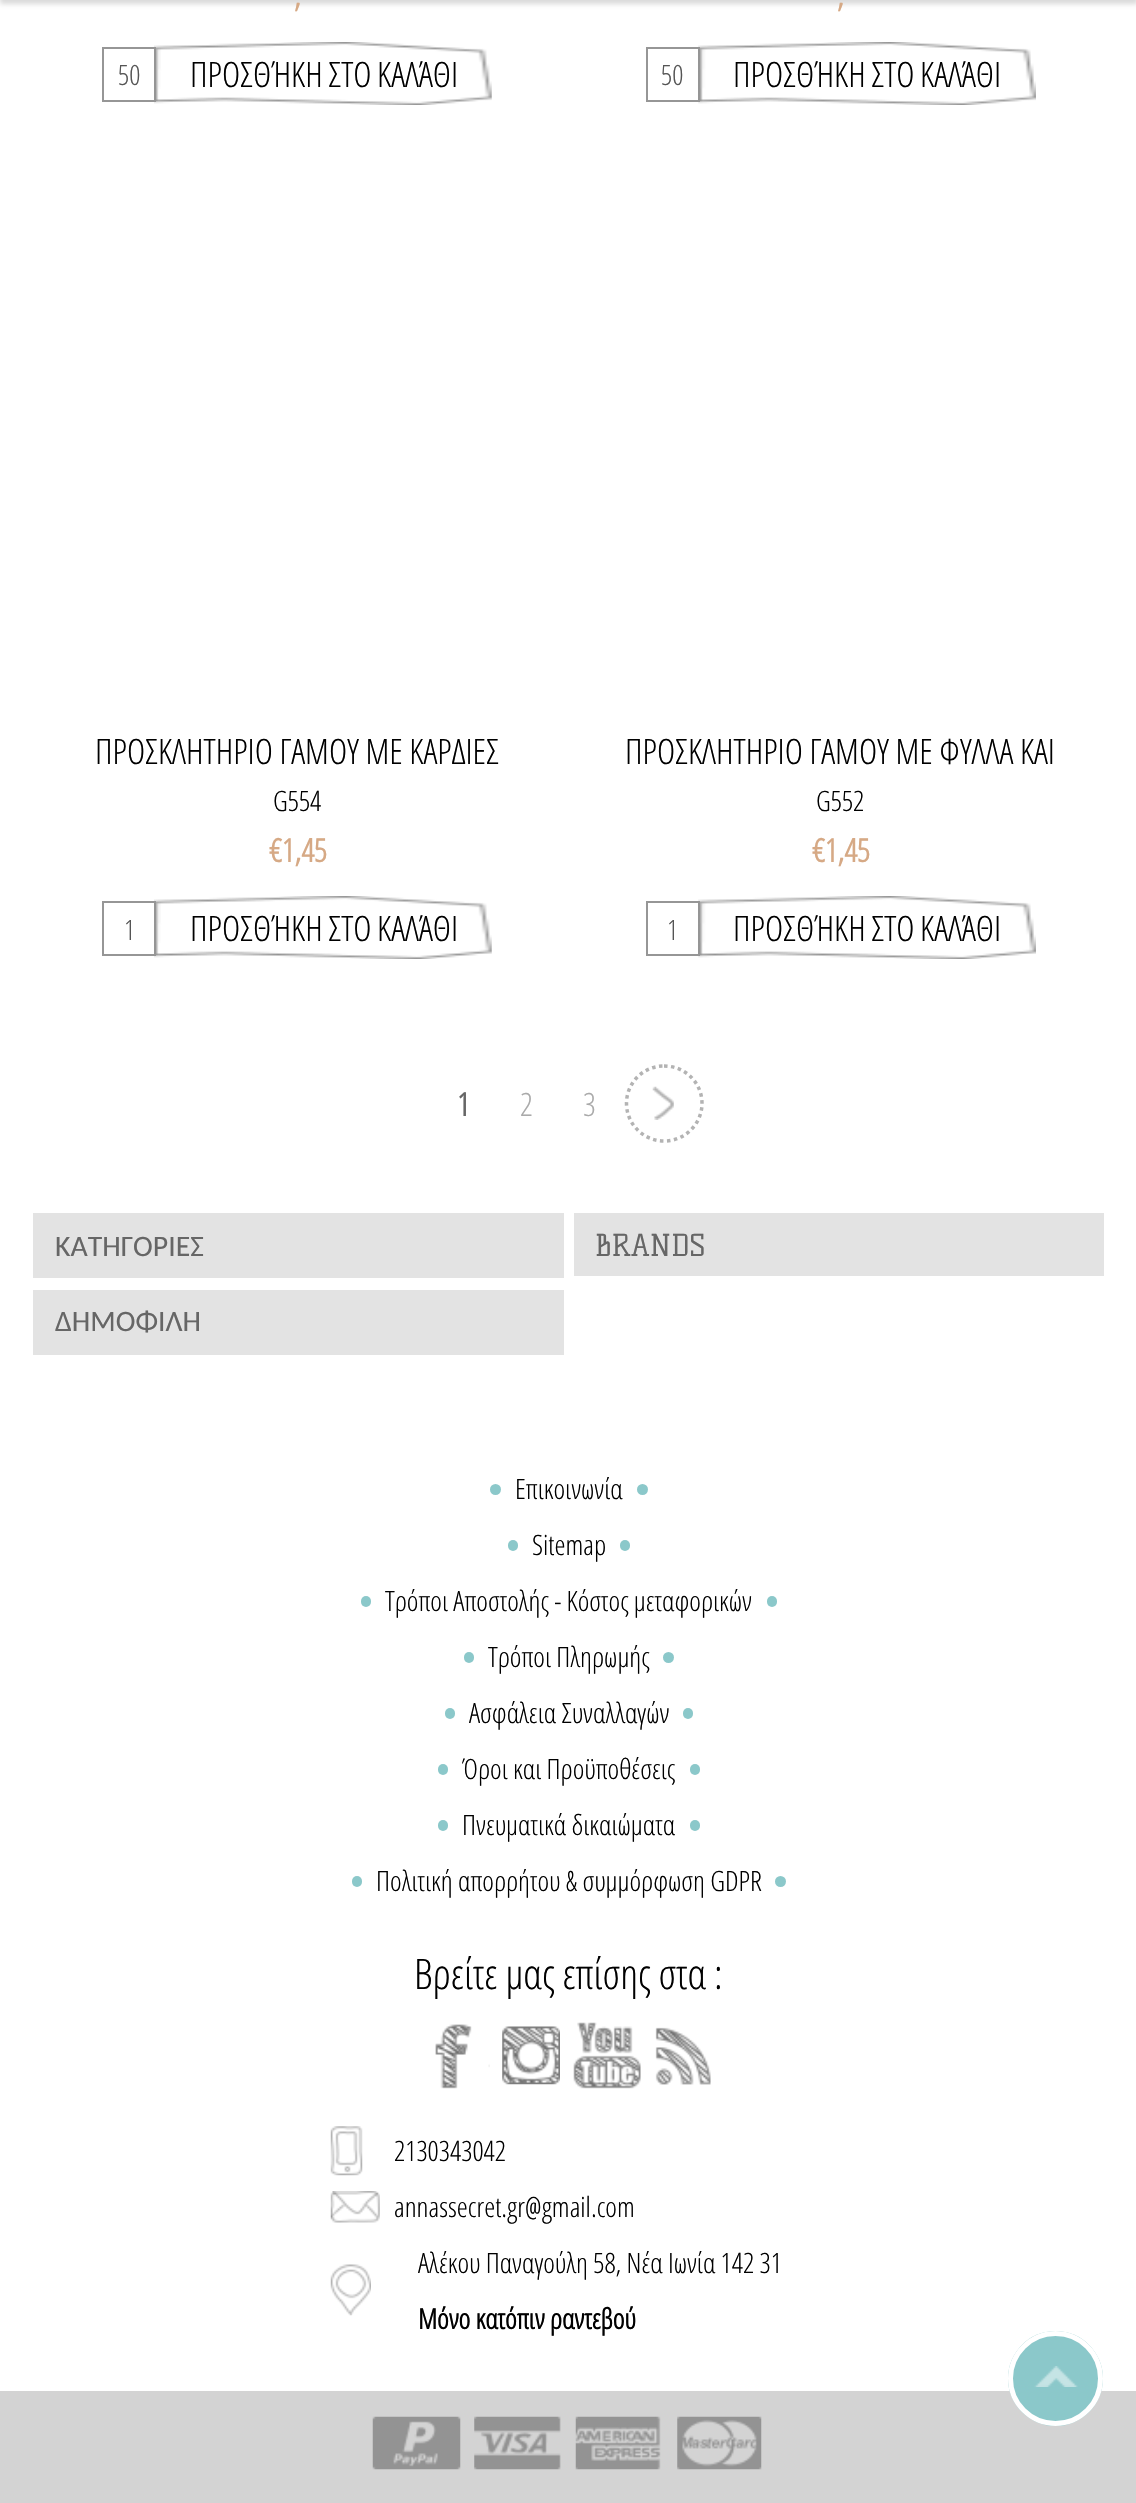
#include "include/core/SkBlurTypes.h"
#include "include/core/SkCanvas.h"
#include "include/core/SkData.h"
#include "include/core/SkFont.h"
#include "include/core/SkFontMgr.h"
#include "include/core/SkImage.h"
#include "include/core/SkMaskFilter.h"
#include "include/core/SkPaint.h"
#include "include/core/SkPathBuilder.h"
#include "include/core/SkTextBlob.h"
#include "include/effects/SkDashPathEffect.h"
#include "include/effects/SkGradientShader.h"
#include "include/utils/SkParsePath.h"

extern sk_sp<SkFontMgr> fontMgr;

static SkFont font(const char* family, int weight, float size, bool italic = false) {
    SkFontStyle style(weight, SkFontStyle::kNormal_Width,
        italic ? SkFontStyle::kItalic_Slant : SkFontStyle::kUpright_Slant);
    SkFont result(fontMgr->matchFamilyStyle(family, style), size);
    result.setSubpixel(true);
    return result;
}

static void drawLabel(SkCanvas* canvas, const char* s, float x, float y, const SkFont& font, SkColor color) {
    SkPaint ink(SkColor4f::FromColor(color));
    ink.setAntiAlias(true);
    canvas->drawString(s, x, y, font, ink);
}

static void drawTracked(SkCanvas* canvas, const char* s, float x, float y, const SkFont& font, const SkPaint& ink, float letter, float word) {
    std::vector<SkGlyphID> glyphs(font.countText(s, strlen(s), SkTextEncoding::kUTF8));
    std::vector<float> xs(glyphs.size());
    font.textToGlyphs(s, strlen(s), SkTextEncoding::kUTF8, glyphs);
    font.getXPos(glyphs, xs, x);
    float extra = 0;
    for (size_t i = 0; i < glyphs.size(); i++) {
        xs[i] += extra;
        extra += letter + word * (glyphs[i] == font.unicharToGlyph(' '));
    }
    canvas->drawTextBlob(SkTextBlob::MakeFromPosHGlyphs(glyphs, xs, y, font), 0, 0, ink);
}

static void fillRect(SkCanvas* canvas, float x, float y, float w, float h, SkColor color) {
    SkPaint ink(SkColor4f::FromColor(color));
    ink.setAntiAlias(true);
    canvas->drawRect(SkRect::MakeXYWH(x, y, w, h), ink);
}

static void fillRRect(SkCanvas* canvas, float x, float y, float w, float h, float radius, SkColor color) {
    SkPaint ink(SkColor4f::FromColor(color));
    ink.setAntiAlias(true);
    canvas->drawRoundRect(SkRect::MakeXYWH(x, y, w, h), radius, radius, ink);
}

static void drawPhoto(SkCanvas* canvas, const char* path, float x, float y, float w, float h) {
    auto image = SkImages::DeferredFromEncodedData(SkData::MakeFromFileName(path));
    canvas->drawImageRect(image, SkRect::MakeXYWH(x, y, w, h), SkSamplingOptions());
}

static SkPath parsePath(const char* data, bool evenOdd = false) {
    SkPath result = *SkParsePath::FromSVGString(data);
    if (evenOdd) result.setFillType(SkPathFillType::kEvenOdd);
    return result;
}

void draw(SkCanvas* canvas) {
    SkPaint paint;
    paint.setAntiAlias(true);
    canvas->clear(0xFFFFFFFF);
    paint.setColor(0x26000000);
    paint.setMaskFilter(SkMaskFilter::MakeBlur(kNormal_SkBlurStyle, 2.5f));
    canvas->drawRect(SkRect::MakeXYWH(0, -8, 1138, 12), paint);
    paint.setMaskFilter(nullptr);
    SkFont font1 = font("Open Sans Condensed", 700, 32);
    drawLabel(canvas, ",", 294, 7, font1, 0xFFD6A985);
    paint.setStroke(true);
    paint.setStrokeWidth(2);
    paint.setColor(0xFF969696);
    canvas->drawRect(SkRect::MakeXYWH(103, 48, 52, 53), paint);
    SkFont font2 = font("Open Sans Condensed", 300, 28);
    drawLabel(canvas, "50", 118, 85, font2, 0xFF555555);
    drawPhoto(canvas, "assets/img1.png", 154, 42, 338, 63);
    SkFont font3 = font("Open Sans Condensed", 300, 35);
    paint.setStroke(false);
    paint.setColor(0xFF000000);
    drawTracked(canvas, "ΠΡΟΣΘΉΚΗ ΣΤΟ ΚΑΛΆΘΙ", 190, 87, font3, paint, 0, -1);
    drawLabel(canvas, ",", 837, 7, font1, 0xFFD6A985);
    paint.setStroke(true);
    paint.setColor(0xFF969696);
    canvas->drawRect(SkRect::MakeXYWH(647, 48, 52, 53), paint);
    drawLabel(canvas, "50", 661, 85, font2, 0xFF555555);
    drawPhoto(canvas, "assets/img2.png", 698, 42, 338, 63);
    paint.setStroke(false);
    paint.setColor(0xFF000000);
    drawTracked(canvas, "ΠΡΟΣΘΉΚΗ ΣΤΟ ΚΑΛΆΘΙ", 733, 87, font3, paint, 0, -1);
    drawLabel(canvas, "ΠΡΟΣΚΛΗΤΗΡΙΟ ΓΑΜΟΥ ΜΕ ΚΑΡΔΙΕΣ", 95, 764, font3, 0xFF000000);
    drawLabel(canvas, "G554", 273, 811, font2, 0xFF000000);
    drawLabel(canvas, "€1,45", 269, 862, font1, 0xFFD6A985);
    paint.setStroke(true);
    paint.setColor(0xFF969696);
    canvas->drawRect(SkRect::MakeXYWH(103, 902, 52, 53), paint);
    drawLabel(canvas, "1", 124, 940, font2, 0xFF555555);
    drawPhoto(canvas, "assets/img3.png", 154, 896, 338, 63);
    paint.setStroke(false);
    paint.setColor(0xFF000000);
    drawTracked(canvas, "ΠΡΟΣΘΉΚΗ ΣΤΟ ΚΑΛΆΘΙ", 190, 941, font3, paint, 0, -1);
    drawLabel(canvas, "ΠΡΟΣΚΛΗΤΗΡΙΟ ΓΑΜΟΥ ΜΕ ΦΥΛΛΑ ΚΑΙ", 625, 764, font3, 0xFF000000);
    drawLabel(canvas, "G552", 816, 811, font2, 0xFF000000);
    drawLabel(canvas, "€1,45", 812, 862, font1, 0xFFD6A985);
    paint.setStroke(true);
    paint.setColor(0xFF969696);
    canvas->drawRect(SkRect::MakeXYWH(647, 902, 52, 53), paint);
    drawLabel(canvas, "1", 667, 940, font2, 0xFF555555);
    drawPhoto(canvas, "assets/img4.png", 698, 896, 338, 63);
    paint.setStroke(false);
    paint.setColor(0xFF000000);
    drawTracked(canvas, "ΠΡΟΣΘΉΚΗ ΣΤΟ ΚΑΛΆΘΙ", 733, 941, font3, paint, 0, -1);
    drawLabel(canvas, "1", 457, 1116, font1, 0xFF666666);
    SkFont font4 = font("Open Sans Condensed", 300, 32);
    drawLabel(canvas, "2", 520, 1116, font4, 0xFFAAAAAA);
    drawLabel(canvas, "3", 583, 1116, font4, 0xFFAAAAAA);
    drawPhoto(canvas, "assets/img5.png", 652, 1086, 22, 34);
    paint.setStroke(true);
    paint.setStrokeWidth(3.5f);
    paint.setColor(0xFFB3B3B3);
    paint.setPathEffect(SkDashPathEffect::Make({{3.5f, 3.5f}}, 0));
    canvas->drawPath(parsePath("M664 1066C685 1066 702 1082.5 702 1103.5C702 1124 685 1141 664 1141C643.5 1141 626.5 1124 626.5 1103.5C626.5 1082.5 643.5 1066 664 1066Z"), paint);
    paint.setPathEffect(nullptr);
    fillRect(canvas, 33, 1213, 531, 65, 0xFFE3E3E3);
    SkFont font5 = font("Carlito", 400, 29.75f);
    drawLabel(canvas, "ΚΑΤΗΓΟΡΙΕΣ", 55, 1256, font5, 0xFF666666);
    fillRect(canvas, 574, 1213, 530, 63, 0xFFE3E3E3);
    SkFont font6 = font("Kelly Slab", 400, 29.75f);
    drawLabel(canvas, "BRANDS", 595, 1256, font6, 0xFF666666);
    fillRect(canvas, 33, 1290, 531, 65, 0xFFE3E3E3);
    drawLabel(canvas, "ΔΗΜΟΦΙΛΗ", 55, 1331, font5, 0xFF666666);
    paint.setStroke(false);
    paint.setColor(0xFF8BC8CA);
    canvas->drawCircle(495.5f, 1489.5f, 5.5f, paint);
    drawLabel(canvas, "Επικοινωνία", 515, 1499, font2, 0xFF000000);
    canvas->drawCircle(642.5f, 1489.5f, 5.5f, paint);
    fillRRect(canvas, 508, 1540, 10, 11, 5, 0xFF8BC8CA);
    drawLabel(canvas, "Sitemap", 532, 1555, font2, 0xFF000000);
    fillRRect(canvas, 620, 1540, 10, 11, 5, 0xFF8BC8CA);
    fillRRect(canvas, 361, 1596, 10, 11, 5, 0xFF8BC8CA);
    drawLabel(canvas, "Τρόποι Αποστολής - Κόστος μεταφορικών", 385, 1611, font2, 0xFF000000);
    fillRRect(canvas, 767, 1596, 10, 11, 5, 0xFF8BC8CA);
    fillRRect(canvas, 464, 1652, 10, 11, 5, 0xFF8BC8CA);
    drawLabel(canvas, "Τρόποι Πληρωμής", 488, 1667, font2, 0xFF000000);
    canvas->drawCircle(668.5f, 1657.5f, 5.5f, paint);
    fillRRect(canvas, 445, 1708, 10, 11, 5, 0xFF8BC8CA);
    drawLabel(canvas, "Ασφάλεια Συναλλαγών", 469, 1723, font2, 0xFF000000);
    fillRRect(canvas, 683, 1708, 10, 11, 5, 0xFF8BC8CA);
    fillRRect(canvas, 438, 1764, 10, 11, 5, 0xFF8BC8CA);
    drawLabel(canvas, "Όροι και Προϋποθέσεις", 462, 1779, font2, 0xFF000000);
    fillRRect(canvas, 690, 1764, 10, 11, 5, 0xFF8BC8CA);
    fillRRect(canvas, 438, 1820, 10, 11, 5, 0xFF8BC8CA);
    drawLabel(canvas, "Πνευματικά δικαιώματα", 462, 1835, font2, 0xFF000000);
    fillRRect(canvas, 690, 1820, 10, 11, 5, 0xFF8BC8CA);
    fillRRect(canvas, 352, 1876, 10, 11, 5, 0xFF8BC8CA);
    drawLabel(canvas, "Πολιτική απορρήτου & συμμόρφωση GDPR", 376, 1891, font2, 0xFF000000);
    canvas->drawCircle(780.5f, 1881.5f, 5.5f, paint);
    SkFont font7 = font("Open Sans Condensed", 300, 42);
    drawLabel(canvas, "Βρείτε μας επίσης στα :", 414, 1989, font7, 0xFF000000);
    drawPhoto(canvas, "assets/img6.png", 435, 2024, 55, 65);
    drawPhoto(canvas, "assets/img7.png", 502, 2026, 58, 59);
    drawPhoto(canvas, "assets/img8.png", 573, 2022, 68, 67);
    drawPhoto(canvas, "assets/img9.png", 655, 2027, 56, 58);
    drawPhoto(canvas, "assets/img10.png", 330, 2126, 33, 50);
    drawLabel(canvas, "2130343042", 394, 2161, font2, 0xFF000000);
    drawPhoto(canvas, "assets/img11.png", 330, 2191, 50, 32);
    drawLabel(canvas, "annassecret.gr@gmail.com", 394, 2217, font2, 0xFF000000);
    drawPhoto(canvas, "assets/img12.png", 330, 2264, 41, 52);
    drawLabel(canvas, "Αλέκου Παναγούλη 58, Νέα Ιωνία 142 31", 418, 2273, font2, 0xFF000000);
    SkFont font8 = font("Open Sans Condensed", 700, 28);
    drawLabel(canvas, "Μόνο κατόπιν ραντεβού", 418, 2329, font8, 0xFF000000);
    fillRect(canvas, 0, 2391, 1136, 112, 0xFFD3D3D3);
    drawPhoto(canvas, "assets/img13.png", 372, 2416, 89, 54);
    drawPhoto(canvas, "assets/img14.png", 474, 2416, 87, 54);
    drawPhoto(canvas, "assets/img15.png", 575, 2416, 86, 54);
    drawPhoto(canvas, "assets/img16.png", 677, 2416, 85, 54);
    canvas->drawCircle(1055.5f, 2378.5f, 47.5f, paint);
    drawPhoto(canvas, "assets/img17.png", 1034, 2366, 44, 21);
    paint.setStroke(true);
    paint.setStrokeWidth(5);
    paint.setColor(0xFFFFFFFF);
    canvas->drawCircle(1055.5f, 2378.5f, 45, paint);
}
